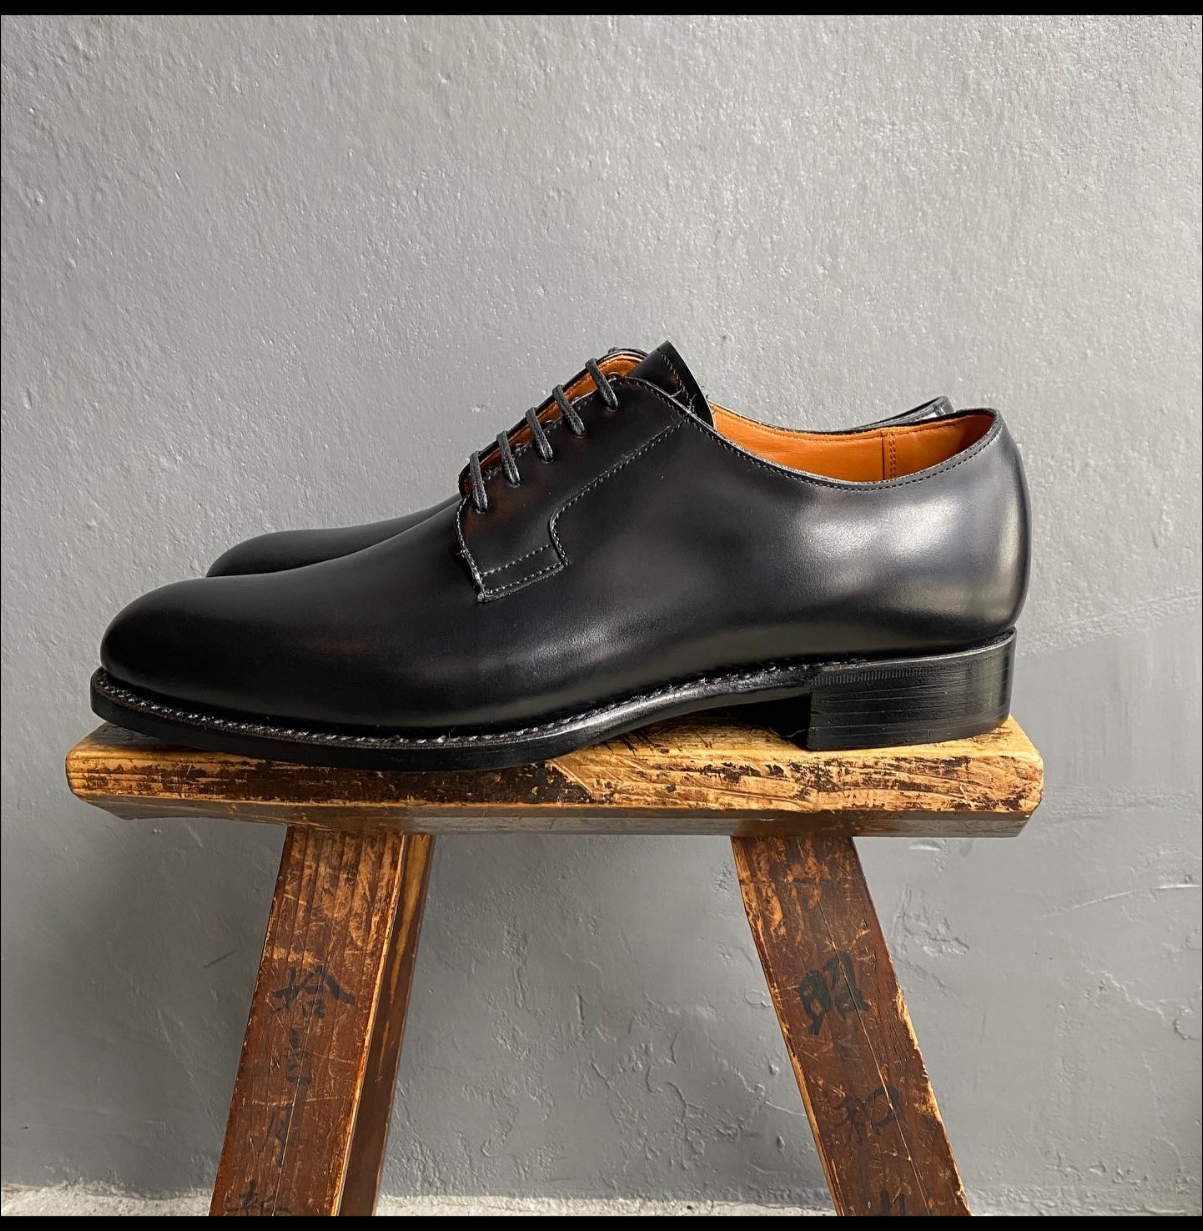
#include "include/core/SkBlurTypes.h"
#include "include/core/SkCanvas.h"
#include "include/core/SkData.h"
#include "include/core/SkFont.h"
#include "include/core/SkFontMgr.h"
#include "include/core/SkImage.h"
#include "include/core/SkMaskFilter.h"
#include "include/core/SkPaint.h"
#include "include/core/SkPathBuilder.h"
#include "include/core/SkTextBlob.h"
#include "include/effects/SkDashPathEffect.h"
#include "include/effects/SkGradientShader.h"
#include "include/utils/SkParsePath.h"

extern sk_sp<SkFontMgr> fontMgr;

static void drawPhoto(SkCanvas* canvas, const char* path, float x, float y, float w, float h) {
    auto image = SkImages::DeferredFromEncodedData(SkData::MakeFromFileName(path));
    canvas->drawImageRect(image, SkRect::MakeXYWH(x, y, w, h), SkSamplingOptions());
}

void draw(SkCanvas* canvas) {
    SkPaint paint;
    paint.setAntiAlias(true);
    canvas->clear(0xFF000000);
    drawPhoto(canvas, "assets/img1.png", 1, 14, 1201, 1203);
}
